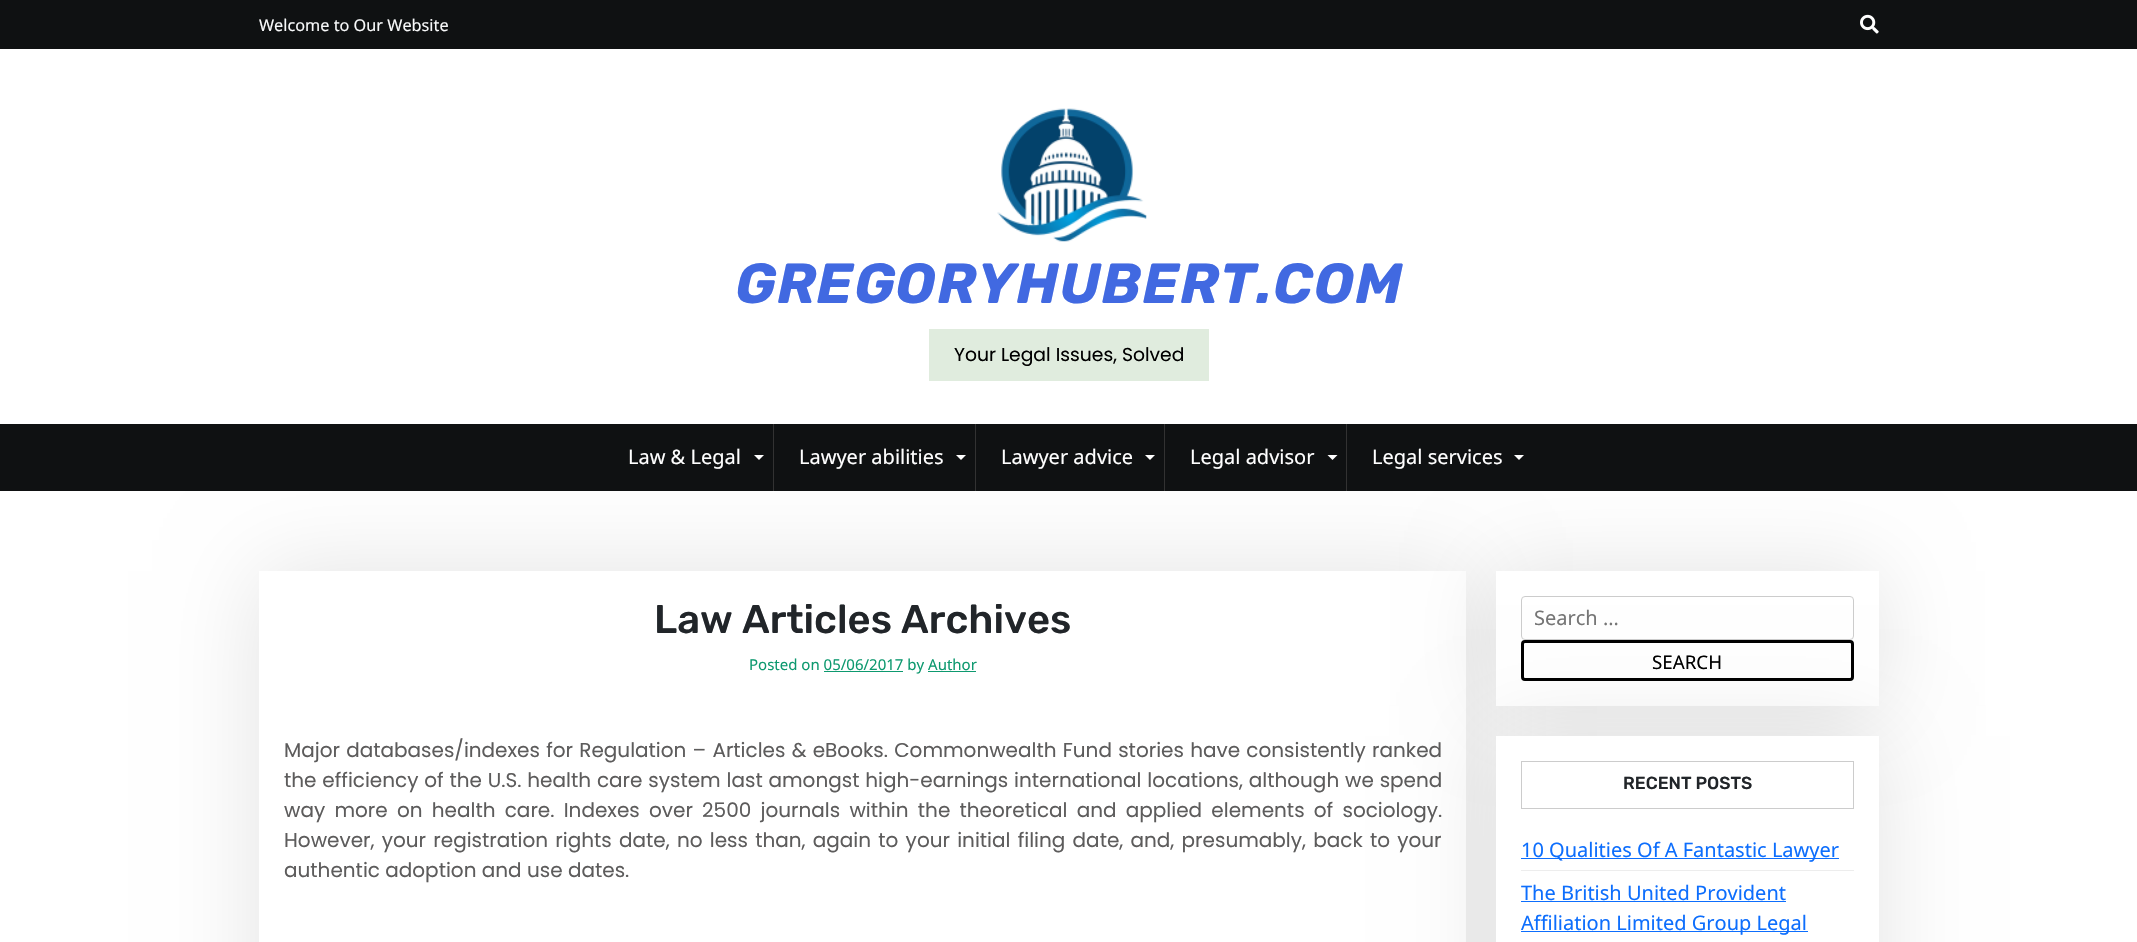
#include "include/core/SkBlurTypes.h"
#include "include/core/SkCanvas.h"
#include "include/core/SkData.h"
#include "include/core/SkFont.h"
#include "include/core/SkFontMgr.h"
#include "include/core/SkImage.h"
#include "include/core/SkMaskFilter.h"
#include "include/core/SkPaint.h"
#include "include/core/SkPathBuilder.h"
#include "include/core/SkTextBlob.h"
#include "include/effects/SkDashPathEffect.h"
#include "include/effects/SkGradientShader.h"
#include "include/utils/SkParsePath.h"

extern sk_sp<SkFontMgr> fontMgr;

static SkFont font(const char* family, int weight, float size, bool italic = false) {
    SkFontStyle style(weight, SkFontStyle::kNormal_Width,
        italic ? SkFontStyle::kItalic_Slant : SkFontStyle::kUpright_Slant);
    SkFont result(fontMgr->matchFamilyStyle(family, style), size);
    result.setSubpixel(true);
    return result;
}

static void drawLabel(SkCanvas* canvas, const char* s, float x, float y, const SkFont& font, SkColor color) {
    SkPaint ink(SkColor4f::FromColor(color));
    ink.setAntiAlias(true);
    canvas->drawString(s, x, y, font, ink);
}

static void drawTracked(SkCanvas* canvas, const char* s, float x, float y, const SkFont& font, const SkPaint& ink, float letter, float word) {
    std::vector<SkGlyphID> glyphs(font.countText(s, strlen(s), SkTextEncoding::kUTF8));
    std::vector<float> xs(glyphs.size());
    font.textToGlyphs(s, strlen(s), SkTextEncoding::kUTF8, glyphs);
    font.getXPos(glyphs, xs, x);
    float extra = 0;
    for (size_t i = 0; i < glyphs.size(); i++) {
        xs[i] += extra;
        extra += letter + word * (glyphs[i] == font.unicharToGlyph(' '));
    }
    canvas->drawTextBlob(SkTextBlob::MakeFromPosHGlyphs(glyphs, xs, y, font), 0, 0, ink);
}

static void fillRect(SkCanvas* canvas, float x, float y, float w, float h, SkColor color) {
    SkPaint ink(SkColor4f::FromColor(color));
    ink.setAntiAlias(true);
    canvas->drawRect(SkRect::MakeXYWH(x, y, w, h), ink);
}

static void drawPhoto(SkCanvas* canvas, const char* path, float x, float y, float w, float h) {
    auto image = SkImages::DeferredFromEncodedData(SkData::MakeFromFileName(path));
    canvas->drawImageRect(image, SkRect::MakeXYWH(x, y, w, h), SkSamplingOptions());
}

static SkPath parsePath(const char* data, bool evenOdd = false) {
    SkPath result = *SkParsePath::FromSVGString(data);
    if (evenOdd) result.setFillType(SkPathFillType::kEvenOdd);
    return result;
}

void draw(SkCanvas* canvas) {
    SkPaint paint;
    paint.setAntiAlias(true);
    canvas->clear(0xFFFFFFFF);
    fillRect(canvas, 0, 0, 2137, 49, 0xFF0F1112);
    SkFont font1 = font("Noto Sans", 400, 16.25f);
    drawLabel(canvas, "Welcome to Our Website", 259, 31, font1, 0xFFF8F9FA);
    drawPhoto(canvas, "assets/img1.png", 1860, 14, 19, 20);
    drawPhoto(canvas, "assets/img2.png", 997, 108, 150, 134);
    SkFont font2 = font("Rubik", 700, 56.25f, true);
    paint.setColor(0xFF4169E1);
    drawTracked(canvas, "GREGORYHUBERT.COM", 735, 303, font2, paint, 1.25f, 0);
    fillRect(canvas, 929, 329, 280, 52, 0xFFE0ECDE);
    SkFont font3 = font("Poppins", 400, 18.75f);
    drawLabel(canvas, "Your Legal Issues, Solved", 954, 361, font3, 0xFF000000);
    fillRect(canvas, 0, 424, 2137, 67, 0xFF0F1112);
    paint.setColor(0x1C000000);
    paint.setMaskFilter(SkMaskFilter::MakeBlur(kNormal_SkBlurStyle, 44));
    canvas->drawRect(SkRect::MakeXYWH(259, 571, 1207, 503), paint);
    paint.setMaskFilter(nullptr);
    fillRect(canvas, 773, 424, 1, 67, 0xFF323232);
    SkFont font4 = font("Noto Sans", 400, 20);
    drawLabel(canvas, "Law & Legal", 628, 464, font4, 0xFFFFFFFF);
    paint.setColor(0xFFFFFFFF);
    canvas->drawPath(parsePath("M754 455H764L759 460Z"), paint);
    fillRect(canvas, 975, 424, 1, 67, 0xFF323232);
    drawLabel(canvas, "Lawyer abilities", 799, 464, font4, 0xFFFFFFFF);
    canvas->drawPath(parsePath("M956 455H966L961 460Z"), paint);
    fillRect(canvas, 1164, 424, 1, 67, 0xFF323232);
    drawLabel(canvas, "Lawyer advice", 1001, 464, font4, 0xFFFFFFFF);
    canvas->drawPath(parsePath("M1145 455H1155L1150 460Z"), paint);
    fillRect(canvas, 1346, 424, 1, 67, 0xFF323232);
    drawLabel(canvas, "Legal advisor", 1190, 464, font4, 0xFFFFFFFF);
    canvas->drawPath(parsePath("M1327.5 455H1337.5L1332.5 460Z"), paint);
    drawLabel(canvas, "Legal services", 1372, 464, font4, 0xFFFFFFFF);
    canvas->drawPath(parsePath("M1514 455H1524L1519 460Z"), paint);
    fillRect(canvas, 259, 571, 1207, 371, 0xFFFFFFFF);
    SkFont font5 = font("Rubik", 500, 40);
    drawLabel(canvas, "Law Articles Archives", 654, 633, font5, 0xFF212529);
    SkFont font6 = font("Noto Sans", 400, 15);
    drawLabel(canvas, "Posted on 05/06/2017 by Author", 749, 670, font6, 0xFF0D996F);
    fillRect(canvas, 824, 671, 79, 1, 0xFF0D996F);
    fillRect(canvas, 928, 671, 48, 1, 0xFF0D996F);
    SkFont font7 = font("Poppins", 400, 20);
    paint.setColor(0xFF5D5C5C);
    drawTracked(canvas, "Major databases/indexes for Regulation – Articles & eBooks. Commonwealth Fund stories have consistently ranked", 284, 757, font7, paint, 0, 0.9f);
    drawTracked(canvas, "the efficiency of the U.S. health care system last amongst high-earnings international locations, although we spend", 284, 787, font7, paint, 0, 0.5f);
    drawTracked(canvas, "way more on health care. Indexes over 2500 journals within the theoretical and applied elements of sociology.", 284, 817, font7, paint, 0, 3.9f);
    drawTracked(canvas, "However, your registration rights date, no less than, again to your initial filing date, and, presumably, back to your", 284, 847, font7, paint, 0, 1.9f);
    drawLabel(canvas, "authentic adoption and use dates.", 284, 877, font7, 0xFF5D5C5C);
    paint.setColor(0x1C000000);
    paint.setMaskFilter(SkMaskFilter::MakeBlur(kNormal_SkBlurStyle, 44));
    canvas->drawRect(SkRect::MakeXYWH(1496, 571, 383, 135), paint);
    paint.setMaskFilter(nullptr);
    fillRect(canvas, 1496, 571, 383, 135, 0xFFFFFFFF);
    paint.setMaskFilter(SkMaskFilter::MakeBlur(kNormal_SkBlurStyle, 44));
    canvas->drawRect(SkRect::MakeXYWH(1496, 736, 383, 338), paint);
    paint.setMaskFilter(nullptr);
    paint.setStroke(true);
    paint.setStrokeWidth(1);
    paint.setColor(0xFFCCCCCC);
    canvas->drawRoundRect(SkRect::MakeXYWH(1521.5f, 596.5f, 332, 43), 3.5f, 3.5f, paint);
    drawLabel(canvas, "Search …", 1534, 625, font4, 0xFF757575);
    paint.setStrokeWidth(3);
    paint.setColor(0xFF000000);
    canvas->drawRoundRect(SkRect::MakeXYWH(1522.5f, 641.5f, 330, 38), 2.5f, 2.5f, paint);
    SkFont font8 = font("Noto Sans", 400, 18.75f);
    drawLabel(canvas, "SEARCH", 1652, 669, font8, 0xFF000000);
    fillRect(canvas, 1496, 736, 383, 206, 0xFFFFFFFF);
    paint.setStrokeWidth(1);
    paint.setColor(0xFFCCCCCC);
    canvas->drawRect(SkRect::MakeXYWH(1521.5f, 761.5f, 332, 47), paint);
    SkFont font9 = font("Rubik", 500, 17.5f);
    drawLabel(canvas, "RECENT POSTS", 1623, 789, font9, 0xFF212529);
    fillRect(canvas, 1521, 870, 333, 1, 0xFFEDEDED);
    fillRect(canvas, 1521, 858, 318, 1, 0xFF0D6EFD);
    drawLabel(canvas, "10 Qualities Of A Fantastic Lawyer", 1521, 857, font4, 0xFF0D6EFD);
    drawLabel(canvas, "The British United Provident", 1521, 900, font4, 0xFF0D6EFD);
    fillRect(canvas, 1521, 901, 265, 1, 0xFF0D6EFD);
    fillRect(canvas, 1521, 931, 287, 1, 0xFF0D6EFD);
    drawLabel(canvas, "Affiliation Limited Group Legal", 1521, 930, font4, 0xFF0D6EFD);
}
